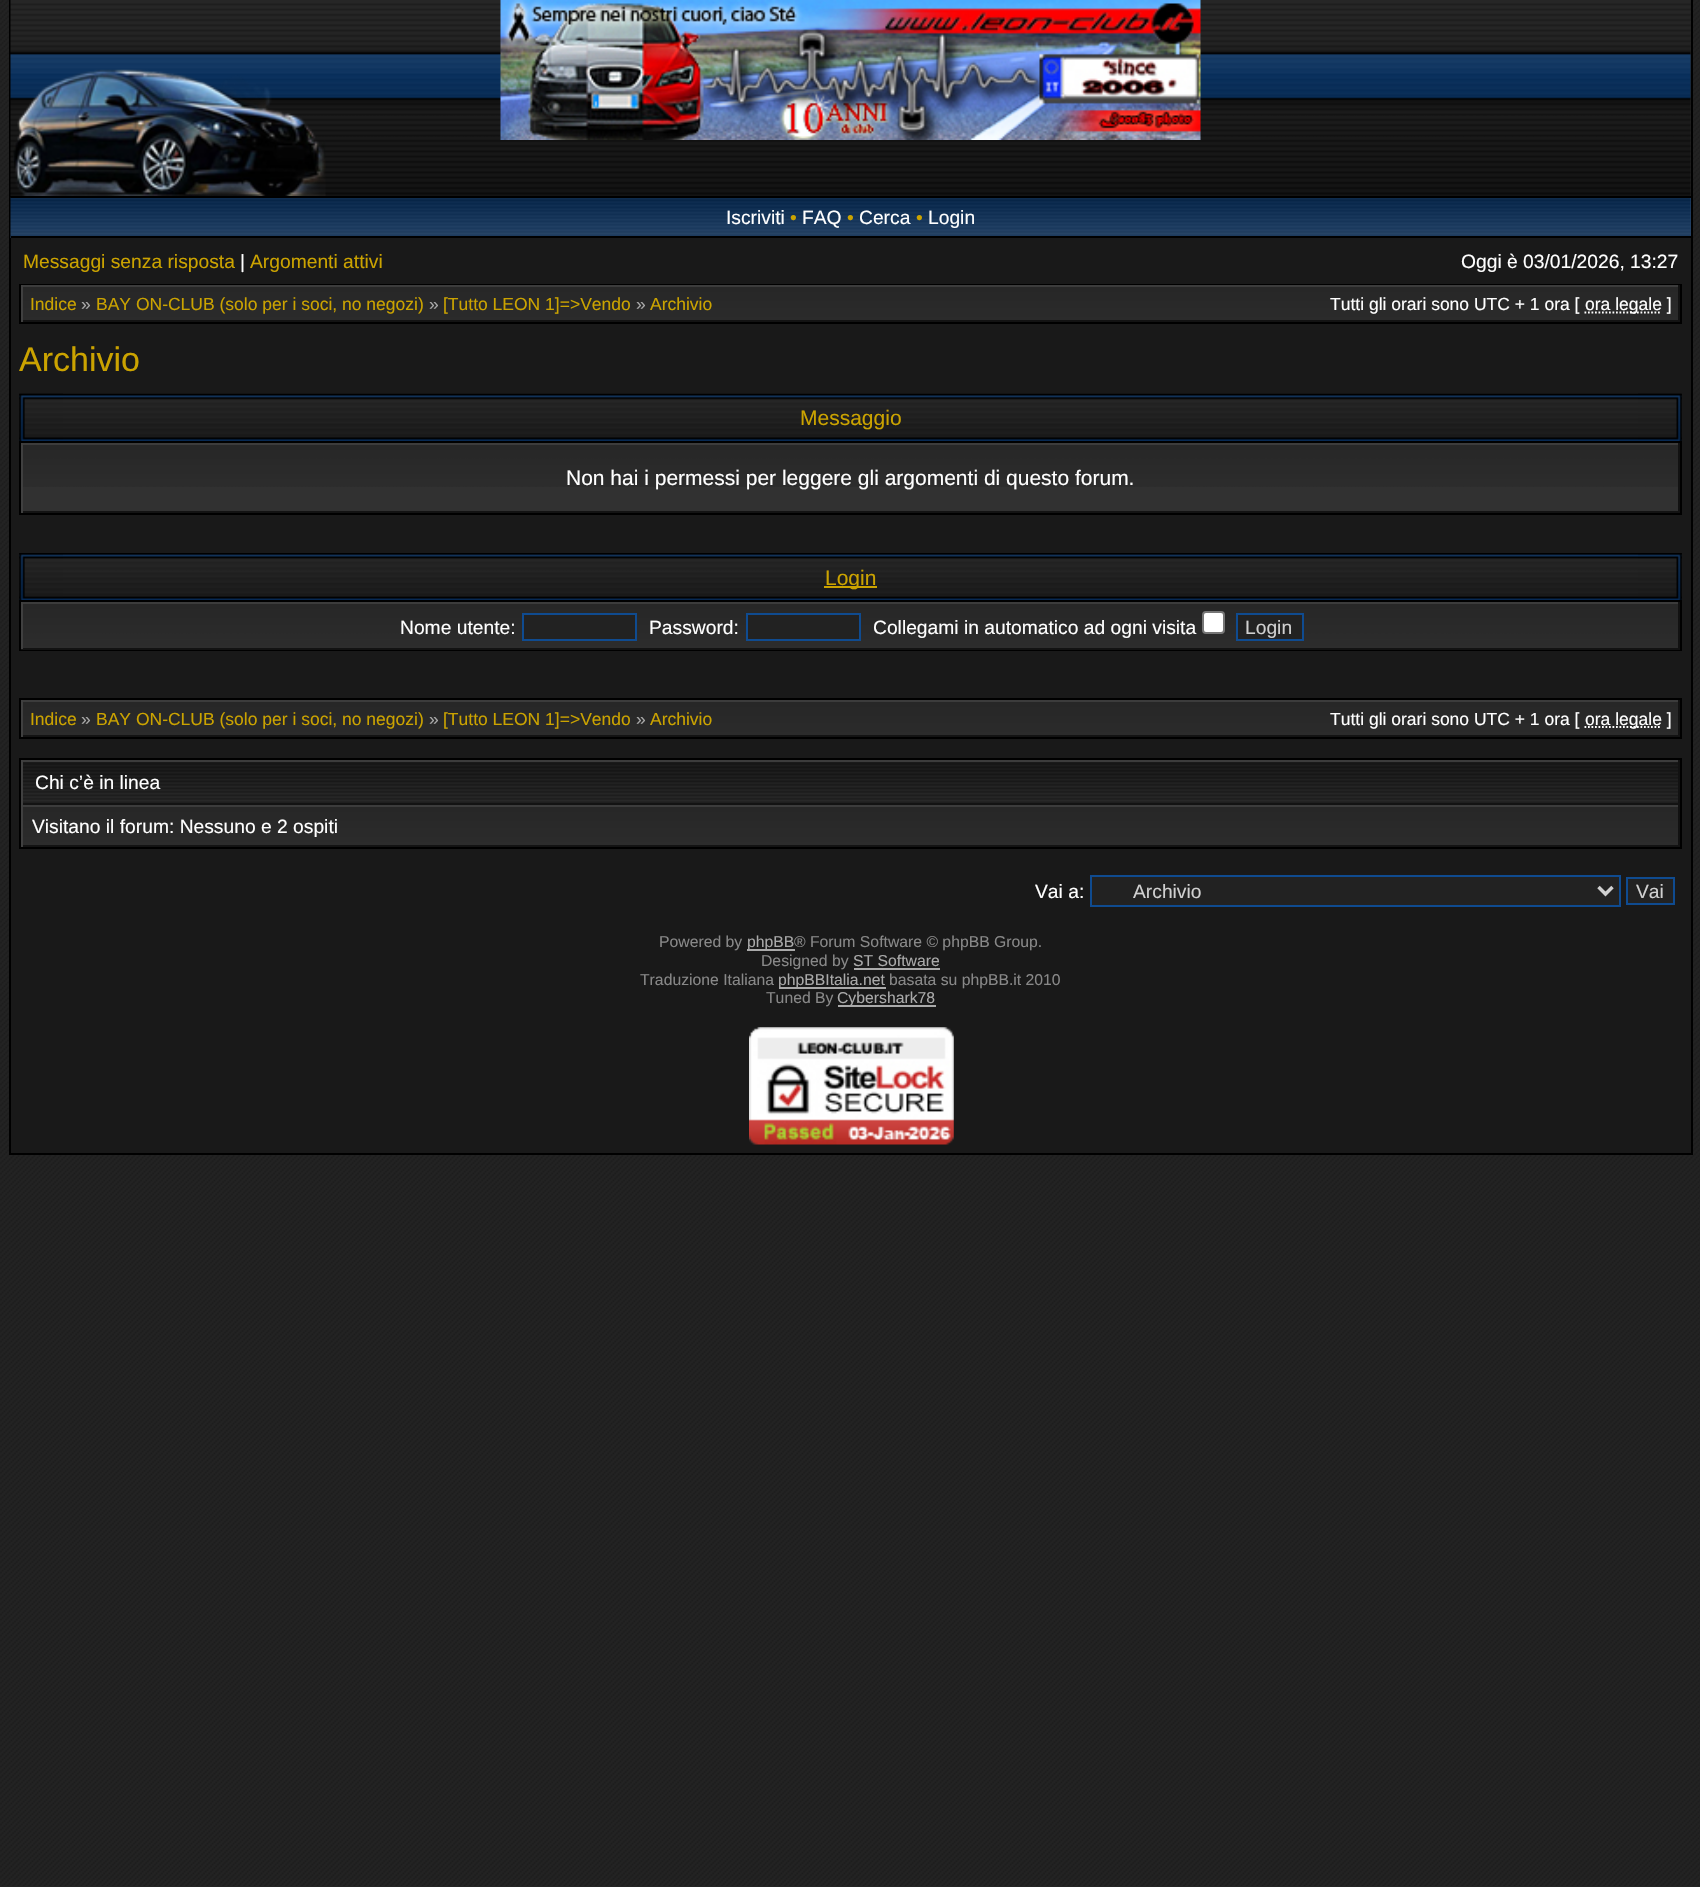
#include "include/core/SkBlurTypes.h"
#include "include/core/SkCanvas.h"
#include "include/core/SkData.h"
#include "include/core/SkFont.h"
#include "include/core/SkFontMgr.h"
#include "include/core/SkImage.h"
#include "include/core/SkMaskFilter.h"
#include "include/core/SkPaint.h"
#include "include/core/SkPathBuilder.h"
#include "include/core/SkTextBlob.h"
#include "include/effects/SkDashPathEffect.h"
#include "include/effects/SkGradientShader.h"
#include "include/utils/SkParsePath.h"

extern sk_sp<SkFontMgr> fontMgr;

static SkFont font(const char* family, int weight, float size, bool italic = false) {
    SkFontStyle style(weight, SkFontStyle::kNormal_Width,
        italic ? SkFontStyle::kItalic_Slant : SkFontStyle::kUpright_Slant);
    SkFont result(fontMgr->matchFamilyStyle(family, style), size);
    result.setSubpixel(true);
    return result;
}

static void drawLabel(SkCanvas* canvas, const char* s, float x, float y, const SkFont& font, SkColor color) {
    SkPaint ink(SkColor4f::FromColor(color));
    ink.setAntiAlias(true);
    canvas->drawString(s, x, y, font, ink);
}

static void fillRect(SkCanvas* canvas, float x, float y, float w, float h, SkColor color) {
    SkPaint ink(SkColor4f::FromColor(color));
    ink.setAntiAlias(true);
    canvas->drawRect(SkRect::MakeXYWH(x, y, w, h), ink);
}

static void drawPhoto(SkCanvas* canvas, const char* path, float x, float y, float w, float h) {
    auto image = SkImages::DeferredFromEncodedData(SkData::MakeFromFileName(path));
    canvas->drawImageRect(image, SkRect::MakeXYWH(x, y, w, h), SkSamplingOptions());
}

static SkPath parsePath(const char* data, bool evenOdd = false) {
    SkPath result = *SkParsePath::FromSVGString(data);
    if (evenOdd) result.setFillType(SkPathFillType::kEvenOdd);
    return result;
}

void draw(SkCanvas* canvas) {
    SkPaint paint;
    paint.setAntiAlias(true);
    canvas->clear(0xFF242424);
    drawPhoto(canvas, "assets/img1.png", 0, 0, 1700, 1886);
    fillRect(canvas, 1691, 0, 2, 1155, 0xFF000000);
    fillRect(canvas, 9, 1153, 1683, 2, 0xFF000000);
    fillRect(canvas, 9, 0, 2, 1155, 0xFF000000);
    drawPhoto(canvas, "assets/img2.png", 10, 0, 1681, 196);
    drawPhoto(canvas, "assets/img3.png", 13, 69, 313, 127);
    drawPhoto(canvas, "assets/img4.png", 500, 0, 701, 140);
    fillRect(canvas, 1690, 198, 1, 38, 0xFF274465);
    drawPhoto(canvas, "assets/img5.png", 10, 197, 1681, 41);
    fillRect(canvas, 11, 196, 1680, 2, 0xFF000000);
    fillRect(canvas, 11, 236, 1680, 2, 0xFF000000);
    SkFont font1 = font("Liberation Sans", 400, 19.25f);
    drawLabel(canvas, "Iscriviti", 726, 224, font1, 0xFFFFFFFF);
    drawLabel(canvas, "•", 790, 224, font1, 0xFFCBA300);
    drawLabel(canvas, "FAQ", 802, 224, font1, 0xFFFFFFFF);
    drawLabel(canvas, "•", 847, 224, font1, 0xFFCBA300);
    drawLabel(canvas, "Cerca", 859, 224, font1, 0xFFFFFFFF);
    drawLabel(canvas, "•", 916, 224, font1, 0xFFCBA300);
    drawLabel(canvas, "Login", 928, 224, font1, 0xFFFFFFFF);
    fillRect(canvas, 11, 238, 1680, 915, 0xFF191919);
    drawLabel(canvas, "Messaggi senza risposta", 23, 268, font1, 0xFFCBA300);
    drawLabel(canvas, "|", 240, 268, font1, 0xFFFFFFFF);
    drawLabel(canvas, "Argomenti attivi", 250, 268, font1, 0xFFCBA300);
    drawLabel(canvas, "Oggi è 03/01/2026, 13:27", 1461, 268, font1, 0xFFFFFFFF);
    paint.setStroke(true);
    paint.setStrokeWidth(2);
    paint.setColor(0xFF000000);
    canvas->drawRect(SkRect::MakeXYWH(20, 285, 1661, 38), paint);
    drawPhoto(canvas, "assets/img6.png", 23, 287, 1655, 33);
    fillRect(canvas, 21, 285, 1659, 2, 0xFF3C3C3C);
    fillRect(canvas, 1678, 285, 2, 37, 0xFF121212);
    fillRect(canvas, 21, 320, 1659, 2, 0xFF131313);
    fillRect(canvas, 21, 285, 2, 37, 0xFF404040);
    SkFont font2 = font("Liberation Sans", 400, 17.5f);
    drawLabel(canvas, "Indice", 30, 310, font2, 0xFFCBA300);
    drawLabel(canvas, "»", 81, 310, font2, 0xFFAAAAAA);
    drawLabel(canvas, "BAY ON-CLUB (solo per i soci, no negozi)", 96, 310, font2, 0xFFCBA300);
    drawLabel(canvas, "»", 429, 310, font2, 0xFFAAAAAA);
    drawLabel(canvas, "[Tutto LEON 1]=>Vendo", 443, 310, font2, 0xFFCBA300);
    drawLabel(canvas, "»", 636, 310, font2, 0xFFAAAAAA);
    drawLabel(canvas, "Archivio", 650, 310, font2, 0xFFCBA300);
    drawLabel(canvas, "Tutti gli orari sono UTC + 1 ora [", 1330, 310, font2, 0xFFFFFFFF);
    paint.setStrokeWidth(1.8f);
    paint.setColor(0xFFFFFFFF);
    paint.setPathEffect(SkDashPathEffect::Make({{1.75f, 1.75f}}, 0));
    canvas->drawPath(parsePath("M1584.5 312.5H1661.5"), paint);
    paint.setPathEffect(nullptr);
    drawLabel(canvas, "ora legale ]", 1585, 310, font2, 0xFFFFFFFF);
    SkFont font3 = font("Liberation Sans", 400, 34);
    drawLabel(canvas, "Archivio", 19, 371, font3, 0xFFCBA300);
    drawPhoto(canvas, "assets/img7.png", 19, 393, 1663, 48);
    drawPhoto(canvas, "assets/img8.png", 19, 393, 44, 48);
    drawPhoto(canvas, "assets/img9.png", 1638, 393, 44, 48);
    SkFont font4 = font("Liberation Sans", 400, 21);
    drawLabel(canvas, "Messaggio", 800, 425, font4, 0xFFCBA300);
    paint.setStrokeWidth(2);
    paint.setColor(0xFF000000);
    canvas->drawRect(SkRect::MakeXYWH(20, 442, 1661, 72), paint);
    fillRect(canvas, 23, 487, 1655, 24, 0xFF313131);
    drawPhoto(canvas, "assets/img10.png", 23, 445, 1655, 42);
    fillRect(canvas, 21, 443, 1659, 2, 0xFF3C3C3C);
    fillRect(canvas, 1678, 443, 2, 70, 0xFF121212);
    fillRect(canvas, 21, 511, 1659, 2, 0xFF131313);
    fillRect(canvas, 21, 443, 2, 70, 0xFF404040);
    drawLabel(canvas, "Non hai i permessi per leggere gli argomenti di questo forum.", 566, 485, font4, 0xFFFFFFFF);
    drawPhoto(canvas, "assets/img11.png", 19, 553, 1663, 47);
    drawPhoto(canvas, "assets/img12.png", 19, 553, 44, 47);
    drawPhoto(canvas, "assets/img13.png", 1638, 553, 44, 47);
    fillRect(canvas, 824, 586, 53, 2, 0xFFCBA300);
    drawLabel(canvas, "Login", 825, 585, font4, 0xFFCBA300);
    canvas->drawRect(SkRect::MakeXYWH(20, 601, 1661, 49), paint);
    drawPhoto(canvas, "assets/img14.png", 23, 604, 1655, 44);
    fillRect(canvas, 21, 602, 1659, 2, 0xFF3C3C3C);
    fillRect(canvas, 1678, 602, 2, 47, 0xFF121212);
    fillRect(canvas, 21, 648, 1659, 2, 0xFF131313);
    fillRect(canvas, 21, 602, 2, 47, 0xFF404040);
    drawLabel(canvas, "Nome utente:", 400, 634, font1, 0xFFFFFFFF);
    paint.setStroke(false);
    paint.setColor(0xFF222222);
    canvas->drawRect(SkRect::MakeXYWH(523, 614, 113, 26), paint);
    paint.setStroke(true);
    paint.setColor(0xFF0F4B90);
    canvas->drawRect(SkRect::MakeXYWH(523, 614, 113, 26), paint);
    drawLabel(canvas, "Password:", 649, 634, font1, 0xFFFFFFFF);
    paint.setStroke(false);
    paint.setColor(0xFF222222);
    canvas->drawRect(SkRect::MakeXYWH(747, 614, 113, 26), paint);
    paint.setStroke(true);
    paint.setColor(0xFF0F4B90);
    canvas->drawRect(SkRect::MakeXYWH(747, 614, 113, 26), paint);
    drawLabel(canvas, "Collegami in automatico ad ogni visita", 873, 634, font1, 0xFFFFFFFF);
    paint.setStroke(false);
    paint.setColor(0xFFFFFFFF);
    canvas->drawRoundRect(SkRect::MakeXYWH(1203, 612, 21, 21), 3, 3, paint);
    paint.setStroke(true);
    paint.setColor(0xFF767676);
    canvas->drawRoundRect(SkRect::MakeXYWH(1203, 612, 21, 21), 3, 3, paint);
    paint.setStroke(false);
    paint.setColor(0xFF222222);
    canvas->drawRect(SkRect::MakeXYWH(1237, 614, 66, 26), paint);
    paint.setStroke(true);
    paint.setColor(0xFF0F4B90);
    canvas->drawRect(SkRect::MakeXYWH(1237, 614, 66, 26), paint);
    drawLabel(canvas, "Login", 1245, 634, font1, 0xFFD0D0D0);
    paint.setColor(0xFF000000);
    canvas->drawRect(SkRect::MakeXYWH(20, 699, 1661, 39), paint);
    drawPhoto(canvas, "assets/img6.png", 23, 702, 1655, 33);
    fillRect(canvas, 21, 700, 1659, 2, 0xFF3C3C3C);
    fillRect(canvas, 1678, 700, 2, 37, 0xFF121212);
    fillRect(canvas, 21, 735, 1659, 2, 0xFF131313);
    fillRect(canvas, 21, 700, 2, 37, 0xFF404040);
    drawLabel(canvas, "Indice", 30, 725, font2, 0xFFCBA300);
    drawLabel(canvas, "»", 81, 725, font2, 0xFFAAAAAA);
    drawLabel(canvas, "BAY ON-CLUB (solo per i soci, no negozi)", 96, 725, font2, 0xFFCBA300);
    drawLabel(canvas, "»", 429, 725, font2, 0xFFAAAAAA);
    drawLabel(canvas, "[Tutto LEON 1]=>Vendo", 443, 725, font2, 0xFFCBA300);
    drawLabel(canvas, "»", 636, 725, font2, 0xFFAAAAAA);
    drawLabel(canvas, "Archivio", 650, 725, font2, 0xFFCBA300);
    drawLabel(canvas, "Tutti gli orari sono UTC + 1 ora [", 1330, 725, font2, 0xFFFFFFFF);
    paint.setStrokeWidth(1.8f);
    paint.setColor(0xFFFFFFFF);
    paint.setPathEffect(SkDashPathEffect::Make({{1.75f, 1.75f}}, 0));
    canvas->drawPath(parsePath("M1584.5 727H1661.5"), paint);
    paint.setPathEffect(nullptr);
    drawLabel(canvas, "ora legale ]", 1585, 725, font2, 0xFFFFFFFF);
    paint.setStrokeWidth(2);
    paint.setColor(0xFF000000);
    canvas->drawRect(SkRect::MakeXYWH(20, 759, 1661, 89), paint);
    drawPhoto(canvas, "assets/img15.png", 23, 762, 1655, 41);
    fillRect(canvas, 21, 760, 1659, 2, 0xFF3C3C3C);
    fillRect(canvas, 1678, 760, 2, 45, 0xFF121212);
    fillRect(canvas, 21, 803, 1659, 2, 0xFF131313);
    fillRect(canvas, 21, 760, 2, 45, 0xFF404040);
    drawLabel(canvas, "Chi c’è in linea", 35, 789, font1, 0xFFFFFFFF);
    drawPhoto(canvas, "assets/img16.png", 23, 807, 1655, 38);
    fillRect(canvas, 21, 805, 1659, 2, 0xFF3C3C3C);
    fillRect(canvas, 1678, 805, 2, 42, 0xFF121212);
    fillRect(canvas, 21, 845, 1659, 2, 0xFF131313);
    fillRect(canvas, 21, 805, 2, 42, 0xFF404040);
    drawLabel(canvas, "Visitano il forum: Nessuno e 2 ospiti", 32, 833, font1, 0xFFFFFFFF);
    drawLabel(canvas, "Vai a:", 1035, 898, font1, 0xFFFFFFFF);
    paint.setStroke(false);
    paint.setColor(0xFF222222);
    canvas->drawRect(SkRect::MakeXYWH(1091, 876, 529, 30), paint);
    paint.setStroke(true);
    paint.setColor(0xFF0F4B90);
    canvas->drawRect(SkRect::MakeXYWH(1091, 876, 529, 30), paint);
    paint.setStrokeWidth(3.5f);
    paint.setColor(0xFFD0D0D0);
    canvas->drawPath(parsePath("M1598.5 887L1605.5 894L1612.5 887"), paint);
    drawLabel(canvas, "Archivio", 1133, 898, font1, 0xFFD0D0D0);
    paint.setStroke(false);
    paint.setColor(0xFF222222);
    canvas->drawRect(SkRect::MakeXYWH(1627, 878, 47, 26), paint);
    paint.setStroke(true);
    paint.setStrokeWidth(2);
    paint.setColor(0xFF0F4B90);
    canvas->drawRect(SkRect::MakeXYWH(1627, 878, 47, 26), paint);
    drawLabel(canvas, "Vai", 1636, 898, font1, 0xFFD0D0D0);
    SkFont font5 = font("Liberation Sans", 400, 15.75f);
    drawLabel(canvas, "Powered by", 659, 947, font5, 0xFF888888);
    fillRect(canvas, 747, 949, 48, 2, 0xFFAAAAAA);
    drawLabel(canvas, "phpBB", 747, 947, font5, 0xFFAAAAAA);
    drawLabel(canvas, "® Forum Software © phpBB Group.", 794, 947, font5, 0xFF888888);
    drawLabel(canvas, "Designed by", 761, 966, font5, 0xFF888888);
    drawLabel(canvas, "ST Software", 853, 966, font5, 0xFFAAAAAA);
    fillRect(canvas, 854, 968, 86, 2, 0xFFAAAAAA);
    drawLabel(canvas, "Traduzione Italiana", 640, 985, font5, 0xFF888888);
    fillRect(canvas, 779, 987, 107, 2, 0xFFAAAAAA);
    drawLabel(canvas, "phpBBItalia.net", 778, 985, font5, 0xFFAAAAAA);
    drawLabel(canvas, "basata su phpBB.it 2010", 889, 985, font5, 0xFF888888);
    drawLabel(canvas, "Tuned By", 766, 1003, font5, 0xFF888888);
    fillRect(canvas, 838, 1005, 98, 2, 0xFFAAAAAA);
    drawLabel(canvas, "Cybershark78", 837, 1003, font5, 0xFFAAAAAA);
    drawPhoto(canvas, "assets/img17.png", 749, 1027, 205, 118);
}
